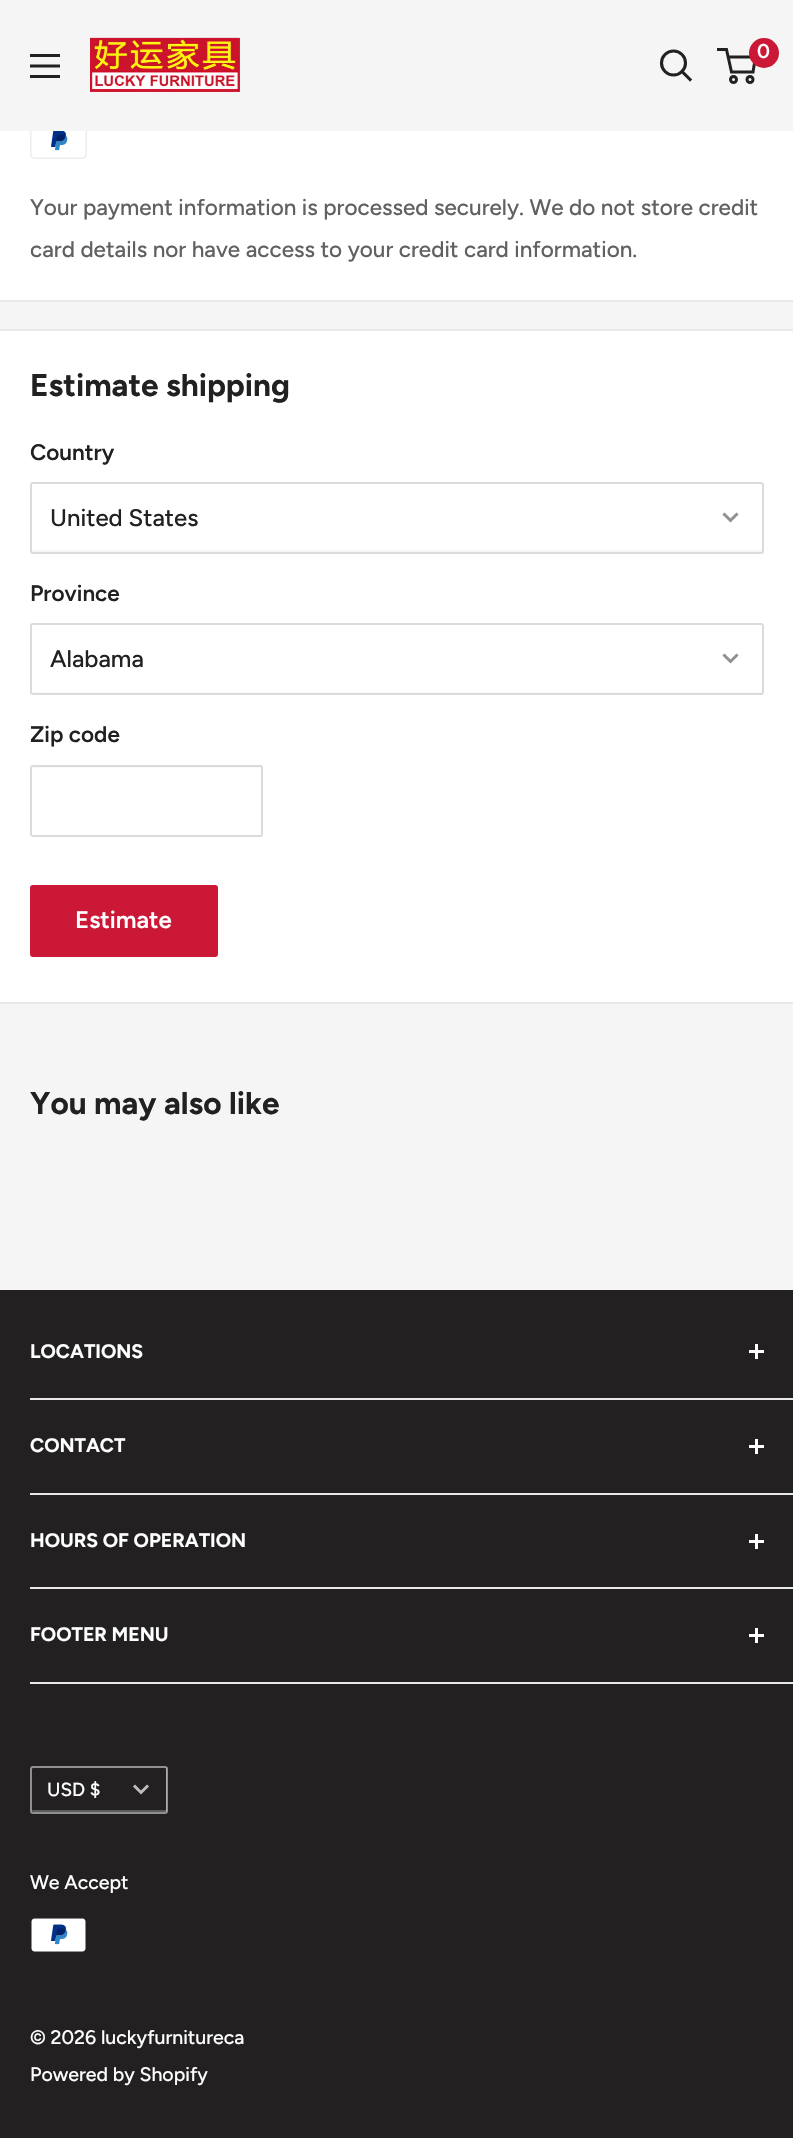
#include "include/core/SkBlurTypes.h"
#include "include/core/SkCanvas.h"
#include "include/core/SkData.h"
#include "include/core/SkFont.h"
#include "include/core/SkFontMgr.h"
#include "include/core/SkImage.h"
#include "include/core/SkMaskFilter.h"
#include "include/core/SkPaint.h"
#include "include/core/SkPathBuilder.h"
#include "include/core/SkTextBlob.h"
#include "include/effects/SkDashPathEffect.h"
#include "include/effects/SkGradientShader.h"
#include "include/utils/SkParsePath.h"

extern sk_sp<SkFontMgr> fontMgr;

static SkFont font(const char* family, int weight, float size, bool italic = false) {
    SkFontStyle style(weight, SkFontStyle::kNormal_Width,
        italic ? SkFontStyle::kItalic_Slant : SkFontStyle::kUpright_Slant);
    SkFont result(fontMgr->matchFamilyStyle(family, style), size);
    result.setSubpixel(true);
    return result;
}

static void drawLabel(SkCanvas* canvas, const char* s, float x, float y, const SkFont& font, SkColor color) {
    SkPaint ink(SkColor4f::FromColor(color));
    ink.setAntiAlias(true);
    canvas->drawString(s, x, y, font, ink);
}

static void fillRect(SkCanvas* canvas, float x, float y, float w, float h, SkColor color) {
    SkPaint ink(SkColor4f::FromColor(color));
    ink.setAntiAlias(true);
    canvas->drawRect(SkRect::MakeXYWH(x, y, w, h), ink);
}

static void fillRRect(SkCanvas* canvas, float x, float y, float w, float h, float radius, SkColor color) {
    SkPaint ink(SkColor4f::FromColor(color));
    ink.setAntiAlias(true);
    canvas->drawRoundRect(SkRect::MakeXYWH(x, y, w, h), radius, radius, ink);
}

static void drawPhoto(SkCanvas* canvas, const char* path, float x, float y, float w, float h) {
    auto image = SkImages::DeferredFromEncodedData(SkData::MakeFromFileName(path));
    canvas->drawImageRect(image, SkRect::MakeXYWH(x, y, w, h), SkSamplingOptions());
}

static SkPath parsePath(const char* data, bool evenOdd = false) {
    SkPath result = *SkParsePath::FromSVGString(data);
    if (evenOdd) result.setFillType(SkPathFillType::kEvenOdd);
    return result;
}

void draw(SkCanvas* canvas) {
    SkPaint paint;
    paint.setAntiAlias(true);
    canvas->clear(0xFFF5F5F5);
    drawPhoto(canvas, "assets/img1.png", 90, 37, 150, 55);
    paint.setStroke(true);
    paint.setStrokeWidth(3.1f);
    paint.setStrokeCap(SkPaint::kSquare_Cap);
    paint.setColor(0xFF222021);
    canvas->drawPath(parsePath("M690 79.5L682 71.5"), paint);
    paint.setStrokeCap(SkPaint::kButt_Cap);
    canvas->drawCircle(673.5f, 63, 12, paint);
    paint.setStrokeWidth(3);
    canvas->drawCircle(733.5f, 79.5f, 3, paint);
    canvas->drawCircle(750, 79.5f, 3, paint);
    canvas->drawPath(parsePath("M728 57H755.5L753 72H731.5L726.5 49.5H717"), paint);
    paint.setStroke(false);
    paint.setColor(0xFFCB1836);
    canvas->drawCircle(764, 53, 15, paint);
    SkFont font1 = font("Figtree", 600, 20);
    drawLabel(canvas, "0", 757, 58, font1, 0xFFFFFFFF);
    drawPhoto(canvas, "assets/img2.png", 30, 54, 30, 24);
    fillRect(canvas, 0, 131, 793, 169, 0xFFFFFFFF);
    fillRect(canvas, 0, 300, 793, 2, 0xFFE8E8E8);
    drawPhoto(canvas, "assets/img3.png", 30, 131, 57, 28);
    SkFont font2 = font("Figtree", 500, 22.5f);
    drawLabel(canvas, "Your payment information is processed securely. We do not store credit", 30, 215, font2, 0xFF616161);
    drawLabel(canvas, "card details nor have access to your credit card information.", 30, 257, font2, 0xFF616161);
    fillRect(canvas, 0, 331, 793, 671, 0xFFFFFFFF);
    fillRect(canvas, 0, 329, 793, 2, 0xFFE8E8E8);
    fillRect(canvas, 0, 1002, 793, 2, 0xFFE8E8E8);
    SkFont font3 = font("Figtree", 700, 31.5f);
    drawLabel(canvas, "Estimate shipping", 30, 396, font3, 0xFF222021);
    SkFont font4 = font("Figtree", 600, 22.5f);
    drawLabel(canvas, "Country", 30, 460, font4, 0xFF222021);
    paint.setColor(0xFFF8F8F8);
    canvas->drawPath(parsePath("M32 549C32 550 32 552 34 552H760L762 551V549C762 550 761 550 760 550H33C32 550 32 550 32 549Z"), paint);
    paint.setStroke(true);
    paint.setStrokeWidth(2);
    paint.setColor(0xFFDBDBDB);
    canvas->drawRoundRect(SkRect::MakeXYWH(31, 483, 732, 70), 2, 2, paint);
    SkFont font5 = font("Figtree", 500, 24);
    drawLabel(canvas, "United States", 50, 526, font5, 0xFF222021);
    paint.setStrokeWidth(3);
    paint.setStrokeCap(SkPaint::kSquare_Cap);
    paint.setColor(0xFF909090);
    canvas->drawPath(parsePath("M736.5 514.5L730.5 520.5L724.5 514.5"), paint);
    drawLabel(canvas, "Province", 30, 601, font4, 0xFF222021);
    paint.setStroke(false);
    paint.setColor(0xFFF8F8F8);
    canvas->drawPath(parsePath("M32 690C32 691 32 693 34 693H760L762 692V690C762 691 761 692 760 692H33C32 692 32 691 32 690Z"), paint);
    paint.setStroke(true);
    paint.setStrokeWidth(2);
    paint.setStrokeCap(SkPaint::kButt_Cap);
    paint.setColor(0xFFDBDBDB);
    canvas->drawRoundRect(SkRect::MakeXYWH(31, 624, 732, 70), 2, 2, paint);
    drawLabel(canvas, "Alabama", 50, 667, font5, 0xFF222021);
    paint.setStrokeWidth(3);
    paint.setStrokeCap(SkPaint::kSquare_Cap);
    paint.setColor(0xFF909090);
    canvas->drawPath(parsePath("M736.5 655.5L730.5 661.5L724.5 655.5"), paint);
    drawLabel(canvas, "Zip code", 30, 742, font4, 0xFF222021);
    paint.setStroke(false);
    paint.setColor(0xFFF9F9F9);
    canvas->drawPath(parsePath("M33 768H260L261 770C261 769 261 767 260 767H34H32V770C32 769 32 768 33 768Z"), paint);
    paint.setStroke(true);
    paint.setStrokeWidth(2);
    paint.setStrokeCap(SkPaint::kButt_Cap);
    paint.setColor(0xFFDBDBDB);
    canvas->drawRoundRect(SkRect::MakeXYWH(31, 766, 231, 70), 2, 2, paint);
    fillRRect(canvas, 30, 885, 188, 72, 3, 0xFFCB1836);
    SkFont font6 = font("Figtree", 600, 24);
    drawLabel(canvas, "Estimate", 75, 928, font6, 0xFFFFFFFF);
    drawLabel(canvas, "You may also like", 30, 1114, font3, 0xFF222021);
    fillRect(canvas, 0, 1290, 793, 848, 0xFF222021);
    fillRect(canvas, 30, 1398, 763, 2, 0xFFE8E8E8);
    SkFont font7 = font("Figtree", 700, 19.5f);
    drawLabel(canvas, "LOCATIONS", 30, 1358, font7, 0xFFFFFFFF);
    fillRect(canvas, 755, 1344, 3, 15, 0xFFFFFFFF);
    fillRect(canvas, 749, 1350, 15, 3, 0xFFFFFFFF);
    fillRect(canvas, 30, 1493, 763, 2, 0xFFE8E8E8);
    drawLabel(canvas, "CONTACT", 30, 1452, font7, 0xFFFFFFFF);
    fillRect(canvas, 755, 1439, 3, 15, 0xFFFFFFFF);
    fillRect(canvas, 749, 1445, 15, 3, 0xFFFFFFFF);
    fillRect(canvas, 30, 1587, 763, 2, 0xFFE8E8E8);
    drawLabel(canvas, "HOURS OF OPERATION", 30, 1547, font7, 0xFFFFFFFF);
    fillRect(canvas, 755, 1534, 3, 15, 0xFFFFFFFF);
    fillRect(canvas, 749, 1540, 15, 3, 0xFFFFFFFF);
    fillRect(canvas, 30, 1682, 763, 2, 0xFFE8E8E8);
    drawLabel(canvas, "FOOTER MENU", 30, 1641, font7, 0xFFFFFFFF);
    fillRect(canvas, 755, 1628, 3, 15, 0xFFFFFFFF);
    fillRect(canvas, 749, 1634, 15, 3, 0xFFFFFFFF);
    paint.setStroke(false);
    paint.setColor(0xFF5D5C5D);
    canvas->drawPath(parsePath("M32 1809V1810C32 1811 33 1812 34 1812H166C166 1812 167 1811 167 1810V1768C167 1768 167 1767 166 1767V1809C166 1810 166 1810 165 1810H33C32 1810 32 1810 32 1809Z"), paint);
    paint.setStroke(true);
    paint.setColor(0x80FFFFFF);
    canvas->drawRoundRect(SkRect::MakeXYWH(31, 1767, 136, 46), 2, 2, paint);
    SkFont font8 = font("Figtree", 500, 19);
    drawLabel(canvas, "USD $", 47, 1796, font8, 0xFFFFFFFF);
    paint.setStrokeWidth(3);
    paint.setStrokeCap(SkPaint::kSquare_Cap);
    paint.setColor(0xFFBDBCBC);
    canvas->drawPath(parsePath("M147 1786.5L141 1792.5L135 1786.5"), paint);
    SkFont font9 = font("Figtree", 500, 19.5f);
    drawLabel(canvas, "We Accept", 30, 1889, font9, 0xFFFFFFFF);
    drawPhoto(canvas, "assets/img4.png", 31, 1918, 55, 34);
    drawLabel(canvas, "© 2026 luckyfurnitureca", 30, 2044, font9, 0xFFFFFFFF);
    drawLabel(canvas, "Powered by Shopify", 30, 2081, font9, 0xFFFFFFFF);
}
